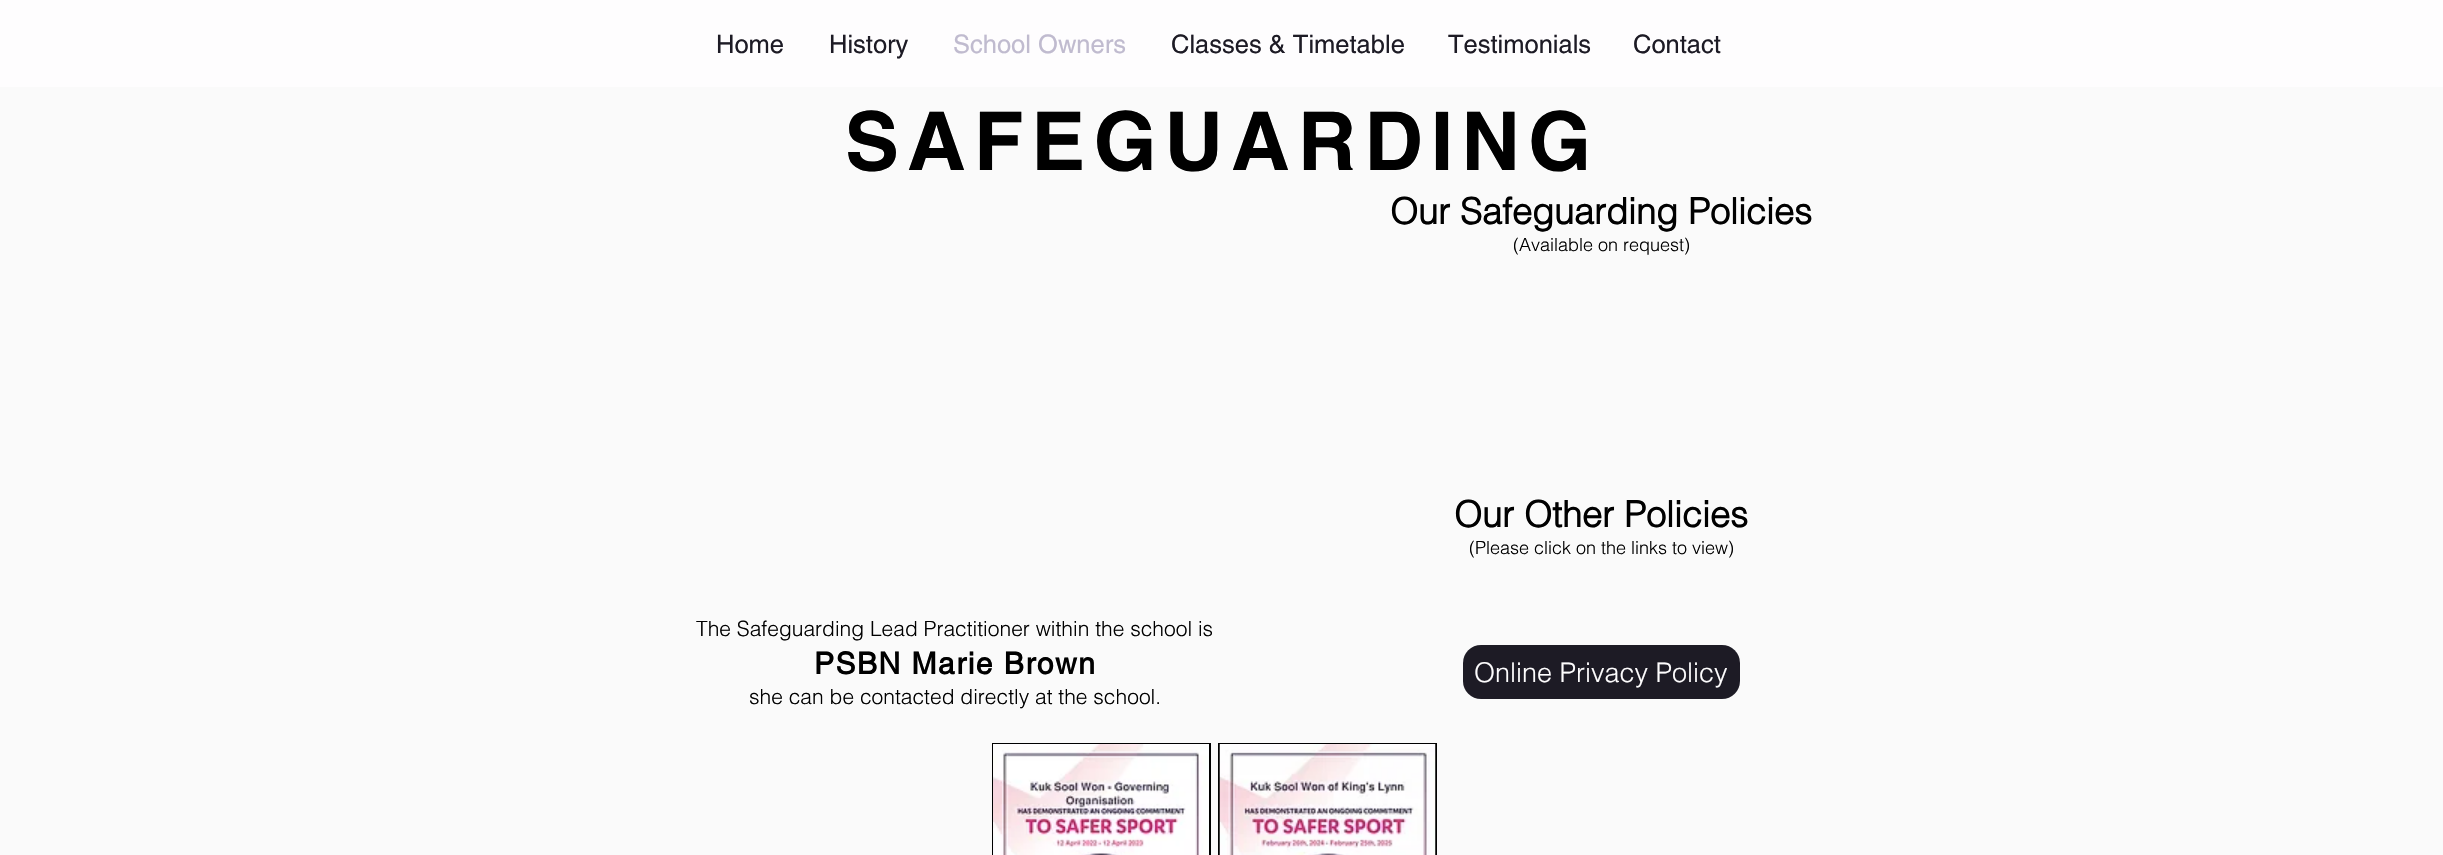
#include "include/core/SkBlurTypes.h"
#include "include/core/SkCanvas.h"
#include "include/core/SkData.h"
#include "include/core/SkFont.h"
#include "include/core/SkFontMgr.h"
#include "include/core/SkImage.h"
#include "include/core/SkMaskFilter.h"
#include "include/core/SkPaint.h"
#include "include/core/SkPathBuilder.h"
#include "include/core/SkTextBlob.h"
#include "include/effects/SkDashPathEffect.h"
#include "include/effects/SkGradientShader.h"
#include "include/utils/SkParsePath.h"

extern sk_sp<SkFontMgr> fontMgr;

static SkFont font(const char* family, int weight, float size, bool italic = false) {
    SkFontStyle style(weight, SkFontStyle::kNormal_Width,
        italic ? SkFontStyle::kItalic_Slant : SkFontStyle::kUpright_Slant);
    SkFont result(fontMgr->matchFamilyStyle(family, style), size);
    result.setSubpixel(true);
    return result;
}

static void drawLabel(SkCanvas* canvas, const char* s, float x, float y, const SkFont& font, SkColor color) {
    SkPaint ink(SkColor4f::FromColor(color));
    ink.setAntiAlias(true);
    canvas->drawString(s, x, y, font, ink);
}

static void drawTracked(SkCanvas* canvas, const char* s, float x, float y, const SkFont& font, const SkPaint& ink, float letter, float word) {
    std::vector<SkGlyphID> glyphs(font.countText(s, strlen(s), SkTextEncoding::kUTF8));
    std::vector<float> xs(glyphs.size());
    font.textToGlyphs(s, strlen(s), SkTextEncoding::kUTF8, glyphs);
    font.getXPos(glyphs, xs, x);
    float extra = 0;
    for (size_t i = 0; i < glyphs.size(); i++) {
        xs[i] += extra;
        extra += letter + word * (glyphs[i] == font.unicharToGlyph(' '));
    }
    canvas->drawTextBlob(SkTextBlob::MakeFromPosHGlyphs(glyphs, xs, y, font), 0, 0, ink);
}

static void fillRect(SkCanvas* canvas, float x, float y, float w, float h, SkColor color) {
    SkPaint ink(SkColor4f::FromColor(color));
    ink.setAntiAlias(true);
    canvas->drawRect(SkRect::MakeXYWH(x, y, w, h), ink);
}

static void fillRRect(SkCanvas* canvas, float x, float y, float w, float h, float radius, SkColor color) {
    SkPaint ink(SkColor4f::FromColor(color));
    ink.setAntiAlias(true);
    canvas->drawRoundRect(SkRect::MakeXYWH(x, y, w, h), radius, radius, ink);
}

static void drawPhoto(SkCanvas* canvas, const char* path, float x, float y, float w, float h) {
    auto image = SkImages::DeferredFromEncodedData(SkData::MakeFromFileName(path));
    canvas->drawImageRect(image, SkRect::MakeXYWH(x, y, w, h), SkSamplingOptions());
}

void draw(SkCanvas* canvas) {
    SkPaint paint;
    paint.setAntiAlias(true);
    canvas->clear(0xFFFAFAFA);
    fillRect(canvas, 0, 0, 2443, 87, 0xFFFEFDFE);
    SkFont font1 = font("helvetica", 400, 25.5f);
    drawLabel(canvas, "Home", 716, 53, font1, 0xFF1D1B25);
    drawLabel(canvas, "History", 829, 53, font1, 0xFF1D1B25);
    drawLabel(canvas, "School Owners", 953, 53, font1, 0xFFC0BBCF);
    drawLabel(canvas, "Classes & Timetable", 1171, 53, font1, 0xFF1D1B25);
    drawLabel(canvas, "Testimonials", 1448, 53, font1, 0xFF1D1B25);
    drawLabel(canvas, "Contact", 1633, 53, font1, 0xFF1D1B25);
    SkFont font2 = font("helvetica", 700, 81);
    paint.setColor(0xFF000000);
    drawTracked(canvas, "SAFEGUARDING", 845, 170, font2, paint, 8.1f, 0);
    SkFont font3 = font("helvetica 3", 700, 36);
    drawLabel(canvas, "Our Safeguarding Policies", 1390, 224, font3, 0xFF000000);
    SkFont font4 = font("helvetica", 300, 18);
    drawLabel(canvas, "(Available on request)", 1513, 251, font4, 0xFF000000);
    drawLabel(canvas, "Our Other Policies", 1454, 527, font3, 0xFF000000);
    drawLabel(canvas, "(Please click on the links to view)", 1469, 554, font4, 0xFF000000);
    SkFont font5 = font("helvetica", 300, 21);
    drawLabel(canvas, "The Safeguarding Lead Practitioner within the school is", 696, 636, font5, 0xFF000000);
    SkFont font6 = font("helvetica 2", 700, 30);
    drawTracked(canvas, "PSBN Marie Brown", 814, 674, font6, paint, 1.5f, 0);
    drawLabel(canvas, "she can be contacted directly at the school.", 749, 704, font5, 0xFF000000);
    fillRRect(canvas, 1463, 645, 277, 54, 18, 0xFF1D1B25);
    SkFont font7 = font("helvetica", 300, 27);
    drawLabel(canvas, "Online Privacy Policy", 1474, 682, font7, 0xFFFEFDFE);
    fillRect(canvas, 992, 743, 219, 112, 0xFF000000);
    drawPhoto(canvas, "assets/img1.png", 993, 744, 216, 111);
    fillRect(canvas, 1218, 743, 219, 112, 0xFF000000);
    drawPhoto(canvas, "assets/img2.png", 1219, 744, 217, 111);
}
